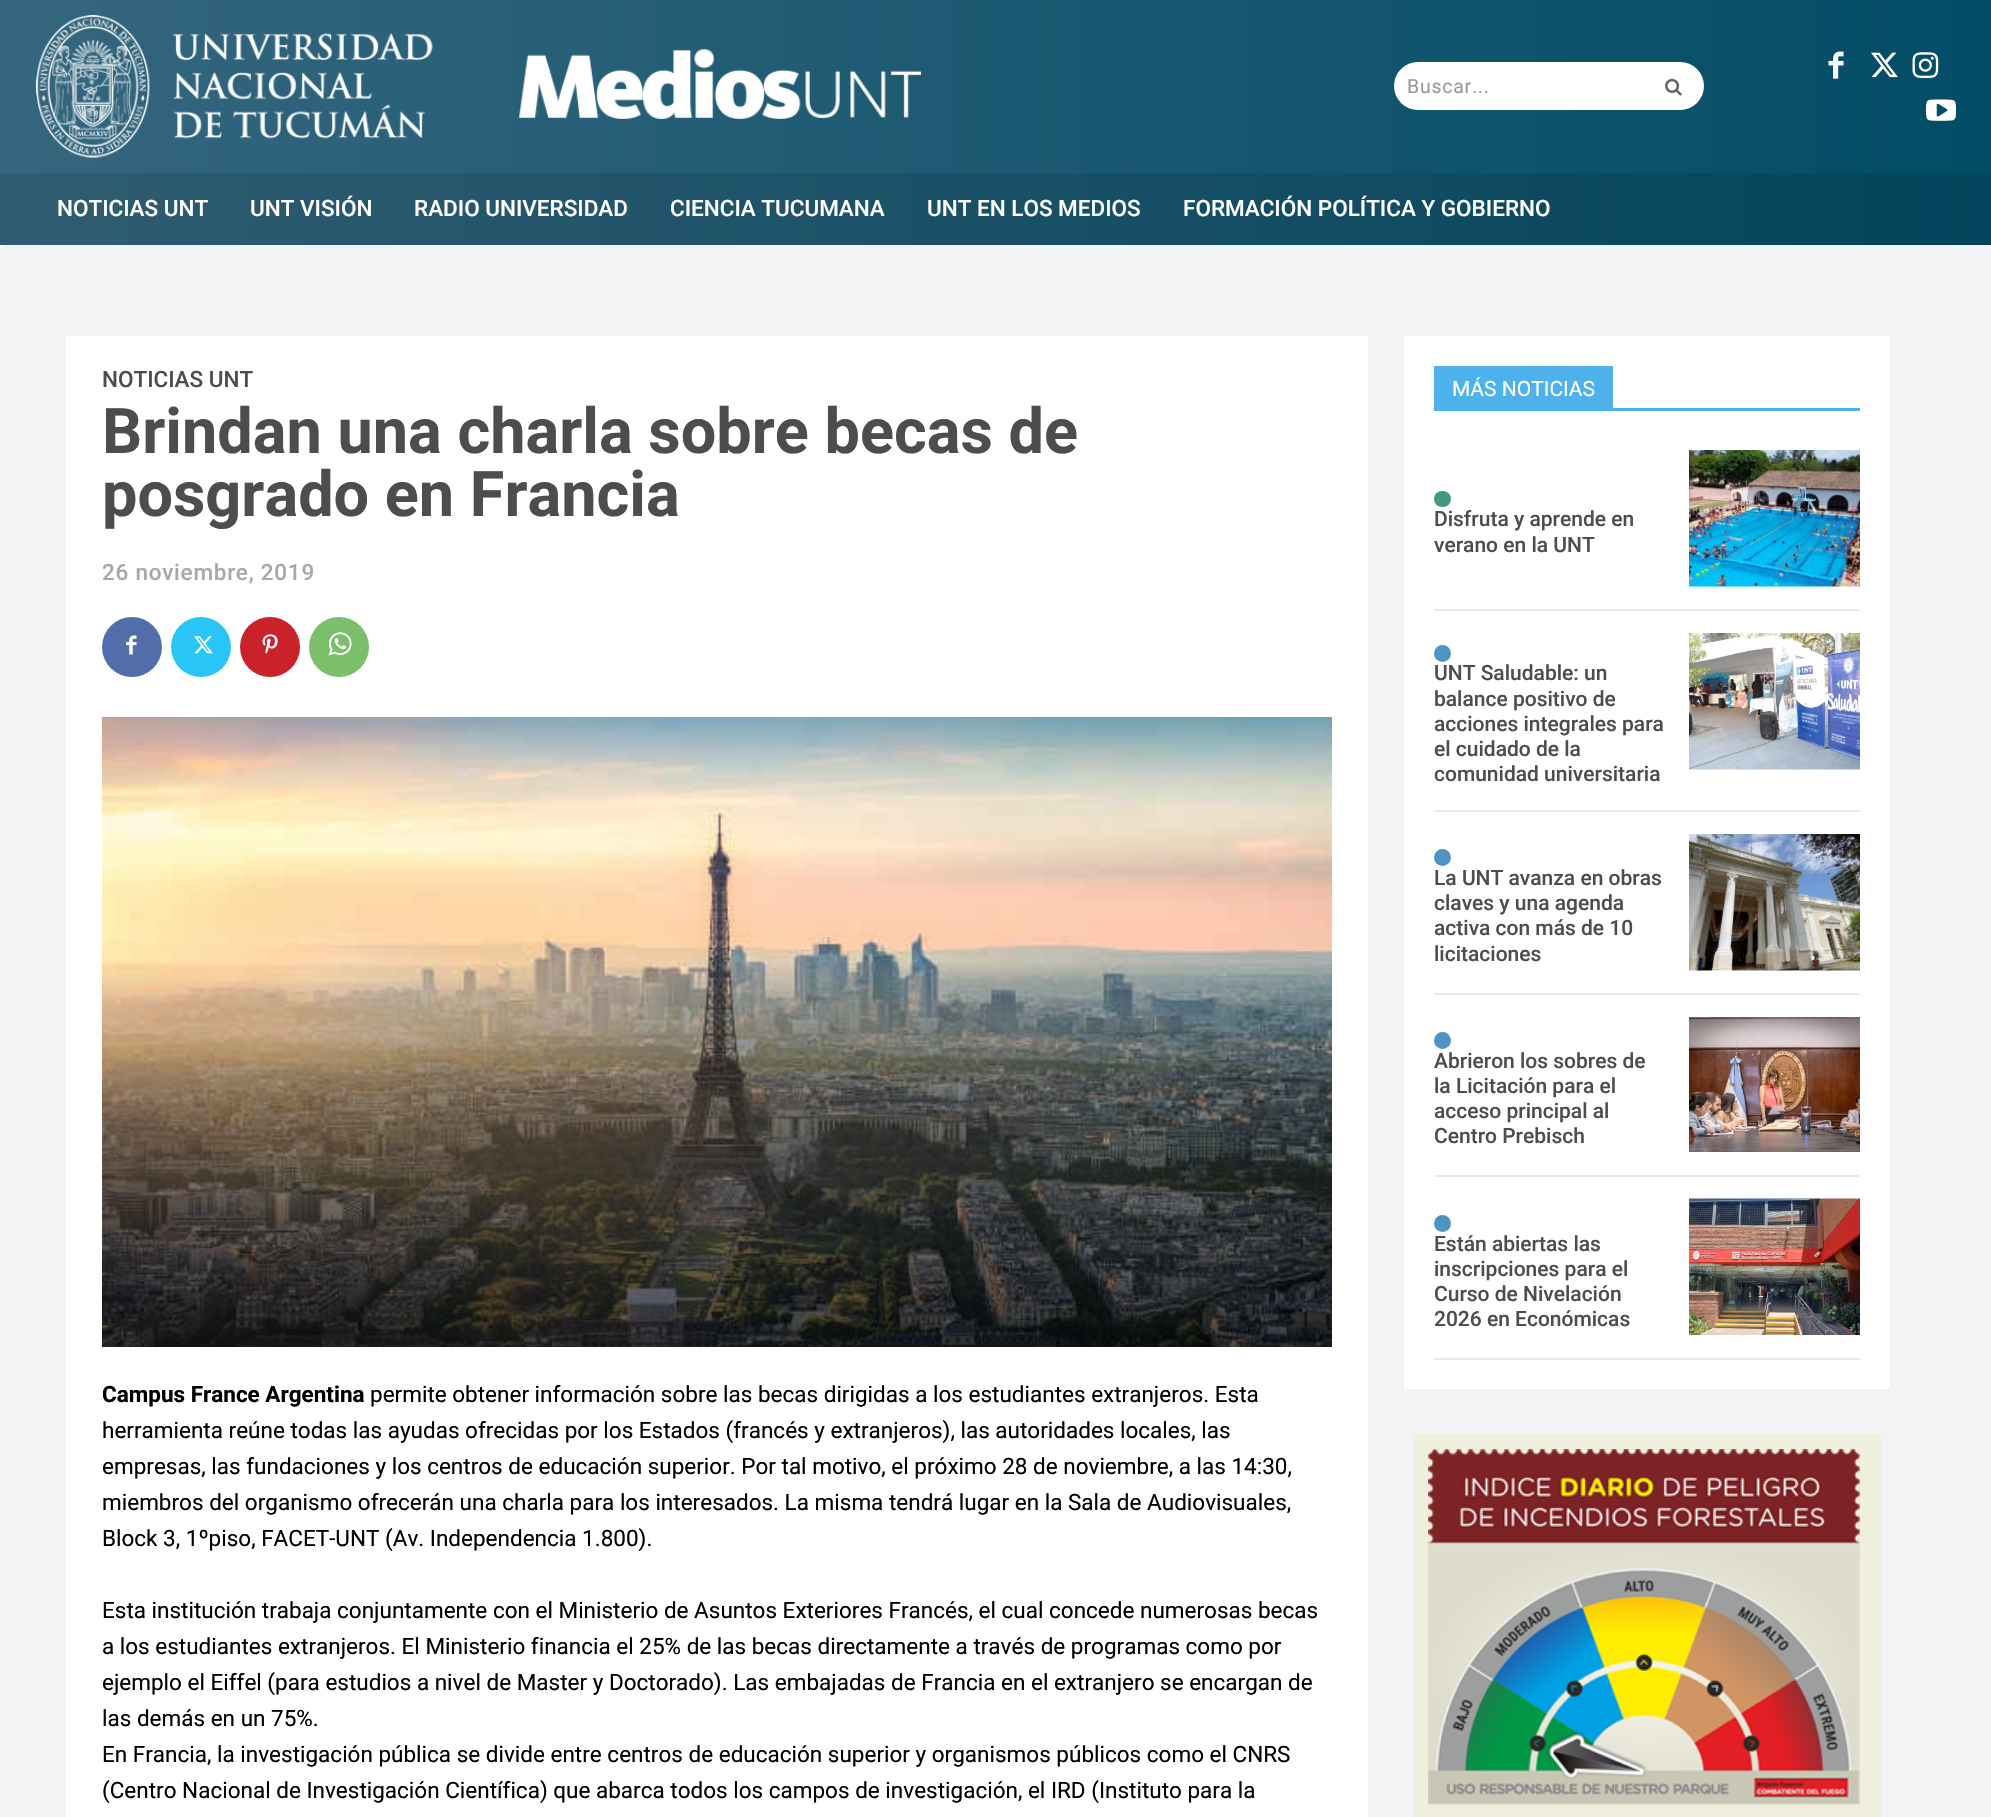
#include "include/core/SkBlurTypes.h"
#include "include/core/SkCanvas.h"
#include "include/core/SkData.h"
#include "include/core/SkFont.h"
#include "include/core/SkFontMgr.h"
#include "include/core/SkImage.h"
#include "include/core/SkMaskFilter.h"
#include "include/core/SkPaint.h"
#include "include/core/SkPathBuilder.h"
#include "include/core/SkTextBlob.h"
#include "include/effects/SkDashPathEffect.h"
#include "include/effects/SkGradientShader.h"
#include "include/utils/SkParsePath.h"

extern sk_sp<SkFontMgr> fontMgr;

static SkFont font(const char* family, int weight, float size, bool italic = false) {
    SkFontStyle style(weight, SkFontStyle::kNormal_Width,
        italic ? SkFontStyle::kItalic_Slant : SkFontStyle::kUpright_Slant);
    SkFont result(fontMgr->matchFamilyStyle(family, style), size);
    result.setSubpixel(true);
    return result;
}

static void drawLabel(SkCanvas* canvas, const char* s, float x, float y, const SkFont& font, SkColor color) {
    SkPaint ink(SkColor4f::FromColor(color));
    ink.setAntiAlias(true);
    canvas->drawString(s, x, y, font, ink);
}

static void drawTracked(SkCanvas* canvas, const char* s, float x, float y, const SkFont& font, const SkPaint& ink, float letter, float word) {
    std::vector<SkGlyphID> glyphs(font.countText(s, strlen(s), SkTextEncoding::kUTF8));
    std::vector<float> xs(glyphs.size());
    font.textToGlyphs(s, strlen(s), SkTextEncoding::kUTF8, glyphs);
    font.getXPos(glyphs, xs, x);
    float extra = 0;
    for (size_t i = 0; i < glyphs.size(); i++) {
        xs[i] += extra;
        extra += letter + word * (glyphs[i] == font.unicharToGlyph(' '));
    }
    canvas->drawTextBlob(SkTextBlob::MakeFromPosHGlyphs(glyphs, xs, y, font), 0, 0, ink);
}

static void fillRect(SkCanvas* canvas, float x, float y, float w, float h, SkColor color) {
    SkPaint ink(SkColor4f::FromColor(color));
    ink.setAntiAlias(true);
    canvas->drawRect(SkRect::MakeXYWH(x, y, w, h), ink);
}

static void fillRRect(SkCanvas* canvas, float x, float y, float w, float h, float radius, SkColor color) {
    SkPaint ink(SkColor4f::FromColor(color));
    ink.setAntiAlias(true);
    canvas->drawRoundRect(SkRect::MakeXYWH(x, y, w, h), radius, radius, ink);
}

static void drawPhoto(SkCanvas* canvas, const char* path, float x, float y, float w, float h) {
    auto image = SkImages::DeferredFromEncodedData(SkData::MakeFromFileName(path));
    canvas->drawImageRect(image, SkRect::MakeXYWH(x, y, w, h), SkSamplingOptions());
}

void draw(SkCanvas* canvas) {
    SkPaint paint;
    paint.setAntiAlias(true);
    canvas->clear(0xFFFFFFFF);
    {
        const SkColor colors[] = {0xFF35667E, 0xFF034D66};
        const float stops[] = {0, 1};
        const SkPoint ends[] = {{0, 122}, {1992, 122}};
        paint.setShader(SkGradientShader::MakeLinear(ends, colors, stops, 2, SkTileMode::kClamp));
        paint.setAlpha(255);
    }
    canvas->drawRect(SkRect::MakeXYWH(0, 0, 1991, 173), paint);
    {
        const SkColor colors[] = {0xFF305C71, 0xFF03455C};
        const float stops[] = {0, 1};
        const SkPoint ends[] = {{0, 122}, {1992, 122}};
        paint.setShader(SkGradientShader::MakeLinear(ends, colors, stops, 2, SkTileMode::kClamp));
        paint.setAlpha(255);
    }
    canvas->drawRect(SkRect::MakeXYWH(0, 173, 1991, 72), paint);
    drawPhoto(canvas, "assets/img1.png", 36, 15, 885, 143);
    fillRRect(canvas, 1394, 62, 310, 48, 24, 0xFFFFFFFF);
    SkFont font1 = font("Roboto", 400, 19.5f);
    paint.setShader(nullptr);
    paint.setColor(0xFF999999);
    drawTracked(canvas, "Buscar...", 1407, 93, font1, paint, 0.75f, 0);
    drawPhoto(canvas, "assets/img2.png", 1665, 78, 17, 18);
    drawPhoto(canvas, "assets/img3.png", 1828, 51, 16, 28);
    drawPhoto(canvas, "assets/img4.png", 1871, 52, 27, 26);
    drawPhoto(canvas, "assets/img5.png", 1912, 52, 27, 26);
    drawPhoto(canvas, "assets/img6.png", 1926, 99, 30, 22);
    SkFont font2 = font("Roboto", 500, 22.5f);
    drawLabel(canvas, "NOTICIAS UNT", 57, 216, font2, 0xFFFFFFFF);
    drawLabel(canvas, "UNT VISIÓN", 250, 216, font2, 0xFFFFFFFF);
    drawLabel(canvas, "RADIO UNIVERSIDAD", 414, 216, font2, 0xFFFFFFFF);
    drawLabel(canvas, "CIENCIA TUCUMANA", 670, 216, font2, 0xFFFFFFFF);
    drawLabel(canvas, "UNT EN LOS MEDIOS", 927, 216, font2, 0xFFFFFFFF);
    drawLabel(canvas, "FORMACIÓN POLÍTICA Y GOBIERNO", 1183, 216, font2, 0xFFFFFFFF);
    fillRRect(canvas, 0, 245, 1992, 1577, 5, 0xFFF2F3F5);
    fillRect(canvas, 66, 336, 1302, 1481, 0xFFFFFFFF);
    drawLabel(canvas, "NOTICIAS UNT", 102, 387, font2, 0xFF4D4D4D);
    SkFont font3 = font("Roboto", 700, 63);
    drawLabel(canvas, "Brindan una charla sobre becas de", 102, 453, font3, 0xFF4D4D4D);
    drawLabel(canvas, "posgrado en Francia", 102, 516, font3, 0xFF4D4D4D);
    paint.setColor(0xFFA8A8A8);
    drawTracked(canvas, "26 noviembre, 2019", 102, 580, font2, paint, 0.75f, 0);
    paint.setColor(0xFF516EAB);
    canvas->drawCircle(132, 647, 30, paint);
    drawPhoto(canvas, "assets/img7.png", 126, 635, 11, 20);
    paint.setColor(0xFF29C5F6);
    canvas->drawCircle(201, 647, 30, paint);
    drawPhoto(canvas, "assets/img8.png", 194, 636, 19, 18);
    paint.setColor(0xFFCA212A);
    canvas->drawCircle(270, 647, 30, paint);
    drawPhoto(canvas, "assets/img9.png", 262, 634, 16, 20);
    paint.setColor(0xFF7BBF6A);
    canvas->drawCircle(339, 647, 30, paint);
    drawPhoto(canvas, "assets/img10.png", 328, 632, 24, 24);
    drawPhoto(canvas, "assets/img11.png", 102, 717, 1230, 630);
    SkFont font4 = font("Roboto", 700, 22.5f);
    drawLabel(canvas, "Campus France Argentina", 102, 1402, font4, 0xFF000000);
    SkFont font5 = font("Roboto", 400, 22.5f);
    drawLabel(canvas, "permite obtener información sobre las becas dirigidas a los estudiantes extranjeros. Esta", 370, 1402, font5, 0xFF000000);
    drawLabel(canvas, "herramienta reúne todas las ayudas ofrecidas por los Estados (francés y extranjeros), las autoridades locales, las", 102, 1438, font5, 0xFF000000);
    drawLabel(canvas, "empresas, las fundaciones y los centros de educación superior. Por tal motivo, el próximo 28 de noviembre, a las 14:30,", 102, 1474, font5, 0xFF000000);
    drawLabel(canvas, "miembros del organismo ofrecerán una charla para los interesados. La misma tendrá lugar en la Sala de Audiovisuales,", 102, 1510, font5, 0xFF000000);
    drawLabel(canvas, "Block 3, 1ºpiso, FACET-UNT (Av. Independencia 1.800).", 102, 1546, font5, 0xFF000000);
    drawLabel(canvas, "Esta institución trabaja conjuntamente con el Ministerio de Asuntos Exteriores Francés, el cual concede numerosas becas", 102, 1618, font5, 0xFF000000);
    drawLabel(canvas, "a los estudiantes extranjeros. El Ministerio financia el 25% de las becas directamente a través de programas como por", 102, 1654, font5, 0xFF000000);
    drawLabel(canvas, "ejemplo el Eiffel (para estudios a nivel de Master y Doctorado). Las embajadas de Francia en el extranjero se encargan de", 102, 1690, font5, 0xFF000000);
    drawLabel(canvas, "las demás en un 75%.", 102, 1726, font5, 0xFF000000);
    drawLabel(canvas, "En Francia, la investigación pública se divide entre centros de educación superior y organismos públicos como el CNRS", 102, 1762, font5, 0xFF000000);
    drawLabel(canvas, "(Centro Nacional de Investigación Científica) que abarca todos los campos de investigación, el IRD (Instituto para la", 102, 1798, font5, 0xFF000000);
    fillRect(canvas, 1404, 336, 486, 1053, 0xFFFFFFFF);
    fillRect(canvas, 1434, 408, 426, 3, 0xFF4DB2EC);
    fillRect(canvas, 1434, 366, 179, 42, 0xFF4DB2EC);
    SkFont font6 = font("Roboto", 400, 21);
    drawLabel(canvas, "MÁS NOTICIAS", 1452, 396, font6, 0xFFFFFFFF);
    fillRect(canvas, 1434, 609, 426, 2, 0xFFEAEAEA);
    fillRRect(canvas, 1434, 491, 17, 16, 8, 0xFF449883);
    SkFont font7 = font("Roboto", 500, 21);
    drawLabel(canvas, "Disfruta y aprende en", 1434, 526, font7, 0xFF4D4D4D);
    drawLabel(canvas, "verano en la UNT", 1434, 552, font7, 0xFF4D4D4D);
    drawPhoto(canvas, "assets/img12.png", 1689, 450, 171, 137);
    fillRect(canvas, 1434, 810, 426, 2, 0xFFEAEAEA);
    paint.setColor(0xFF4E94C2);
    canvas->drawCircle(1442.5f, 653.5f, 8.5f, paint);
    drawLabel(canvas, "UNT Saludable: un", 1434, 680, font7, 0xFF4D4D4D);
    drawLabel(canvas, "balance positivo de", 1434, 706, font7, 0xFF4D4D4D);
    drawLabel(canvas, "acciones integrales para", 1434, 731, font7, 0xFF4D4D4D);
    drawLabel(canvas, "el cuidado de la", 1434, 756, font7, 0xFF4D4D4D);
    drawLabel(canvas, "comunidad universitaria", 1434, 781, font7, 0xFF4D4D4D);
    drawPhoto(canvas, "assets/img13.png", 1689, 633, 171, 137);
    fillRect(canvas, 1434, 993, 426, 2, 0xFFEAEAEA);
    canvas->drawCircle(1442.5f, 857.5f, 8.5f, paint);
    drawLabel(canvas, "La UNT avanza en obras", 1434, 885, font7, 0xFF4D4D4D);
    drawLabel(canvas, "claves y una agenda", 1434, 910, font7, 0xFF4D4D4D);
    drawLabel(canvas, "activa con más de 10", 1434, 935, font7, 0xFF4D4D4D);
    drawLabel(canvas, "licitaciones", 1434, 961, font7, 0xFF4D4D4D);
    drawPhoto(canvas, "assets/img14.png", 1689, 834, 171, 137);
    fillRect(canvas, 1434, 1175, 426, 2, 0xFFEAEAEA);
    canvas->drawCircle(1442.5f, 1040.5f, 8.5f, paint);
    drawLabel(canvas, "Abrieron los sobres de", 1434, 1068, font7, 0xFF4D4D4D);
    drawLabel(canvas, "la Licitación para el", 1434, 1093, font7, 0xFF4D4D4D);
    drawLabel(canvas, "acceso principal al", 1434, 1118, font7, 0xFF4D4D4D);
    drawLabel(canvas, "Centro Prebisch", 1434, 1143, font7, 0xFF4D4D4D);
    drawPhoto(canvas, "assets/img15.png", 1689, 1017, 171, 135);
    fillRect(canvas, 1434, 1358, 426, 2, 0xFFEAEAEA);
    canvas->drawCircle(1442.5f, 1223.5f, 8.5f, paint);
    drawLabel(canvas, "Están abiertas las", 1434, 1251, font7, 0xFF4D4D4D);
    drawLabel(canvas, "inscripciones para el", 1434, 1276, font7, 0xFF4D4D4D);
    drawLabel(canvas, "Curso de Nivelación", 1434, 1301, font7, 0xFF4D4D4D);
    drawLabel(canvas, "2026 en Económicas", 1434, 1326, font7, 0xFF4D4D4D);
    drawPhoto(canvas, "assets/img16.png", 1689, 1198, 171, 137);
    drawPhoto(canvas, "assets/img17.png", 1413, 1434, 468, 383);
}
